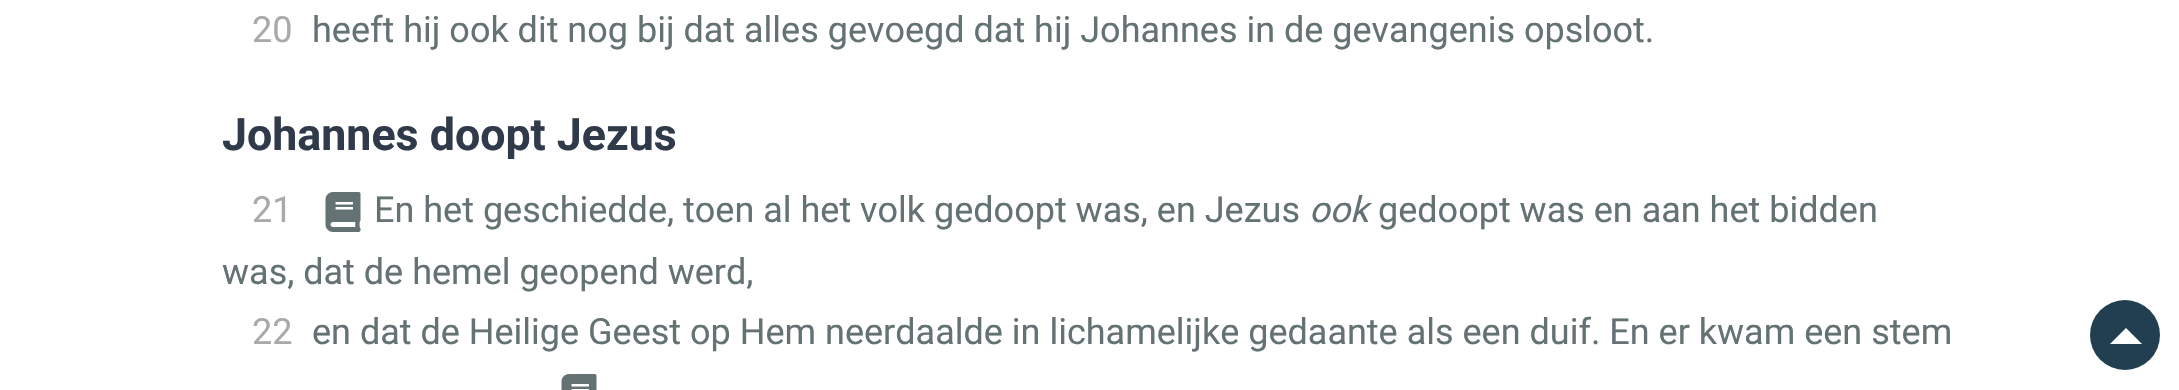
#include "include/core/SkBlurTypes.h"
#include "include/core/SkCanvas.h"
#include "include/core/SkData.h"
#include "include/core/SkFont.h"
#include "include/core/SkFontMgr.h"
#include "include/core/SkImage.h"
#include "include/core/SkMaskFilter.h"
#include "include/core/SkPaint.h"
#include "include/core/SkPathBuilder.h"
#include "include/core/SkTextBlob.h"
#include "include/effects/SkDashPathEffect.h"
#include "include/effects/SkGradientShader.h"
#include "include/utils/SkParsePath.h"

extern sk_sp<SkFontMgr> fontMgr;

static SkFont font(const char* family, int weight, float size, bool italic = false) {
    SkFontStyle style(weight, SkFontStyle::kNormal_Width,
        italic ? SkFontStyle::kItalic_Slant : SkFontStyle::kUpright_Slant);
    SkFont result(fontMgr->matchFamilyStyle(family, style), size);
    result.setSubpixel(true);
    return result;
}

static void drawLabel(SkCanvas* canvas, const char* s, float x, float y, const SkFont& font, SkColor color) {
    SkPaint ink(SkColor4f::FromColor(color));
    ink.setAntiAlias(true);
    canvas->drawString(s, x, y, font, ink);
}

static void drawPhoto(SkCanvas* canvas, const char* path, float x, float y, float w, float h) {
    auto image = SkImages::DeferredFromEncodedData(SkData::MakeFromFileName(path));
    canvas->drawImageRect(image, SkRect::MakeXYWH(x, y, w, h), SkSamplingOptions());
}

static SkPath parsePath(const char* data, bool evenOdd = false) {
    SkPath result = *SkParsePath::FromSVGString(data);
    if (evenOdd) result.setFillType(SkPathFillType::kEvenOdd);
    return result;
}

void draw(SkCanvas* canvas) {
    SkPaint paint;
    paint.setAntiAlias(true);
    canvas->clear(0xFFFFFFFF);
    SkFont font1 = font("Roboto", 400, 36);
    drawLabel(canvas, "20", 252, 42, font1, 0xFFA9A9A9);
    drawLabel(canvas, "heeft hij ook dit nog bij dat alles gevoegd dat hij Johannes in de gevangenis opsloot.", 312, 42, font1, 0xFF647273);
    SkFont font2 = font("Roboto", 700, 44.75f);
    drawLabel(canvas, "Johannes doopt Jezus", 222, 150, font2, 0xFF303A4A);
    drawLabel(canvas, "21", 252, 222, font1, 0xFFA9A9A9);
    drawPhoto(canvas, "assets/img1.png", 325, 192, 36, 40);
    drawLabel(canvas, "En het geschiedde, toen al het volk gedoopt was, en Jezus", 374, 222, font1, 0xFF647273);
    SkFont font3 = font("Roboto", 400, 36, true);
    drawLabel(canvas, "ook", 1309, 222, font3, 0xFF647273);
    drawLabel(canvas, "gedoopt was en aan het bidden", 1378, 222, font1, 0xFF647273);
    drawLabel(canvas, "was, dat de hemel geopend werd,", 222, 284, font1, 0xFF647273);
    drawLabel(canvas, "22", 252, 344, font1, 0xFFA9A9A9);
    drawLabel(canvas, "en dat de Heilige Geest op Hem neerdaalde in lichamelijke gedaante als een duif. En er kwam een stem", 312, 344, font1, 0xFF647273);
    drawPhoto(canvas, "assets/img2.png", 561, 374, 36, 16);
    paint.setColor(0xFF213F50);
    canvas->drawCircle(2125, 335, 35, paint);
    paint.setColor(0xFFFFFFFF);
    canvas->drawPath(parsePath("M2142 344H2110L2126 328Z"), paint);
}
